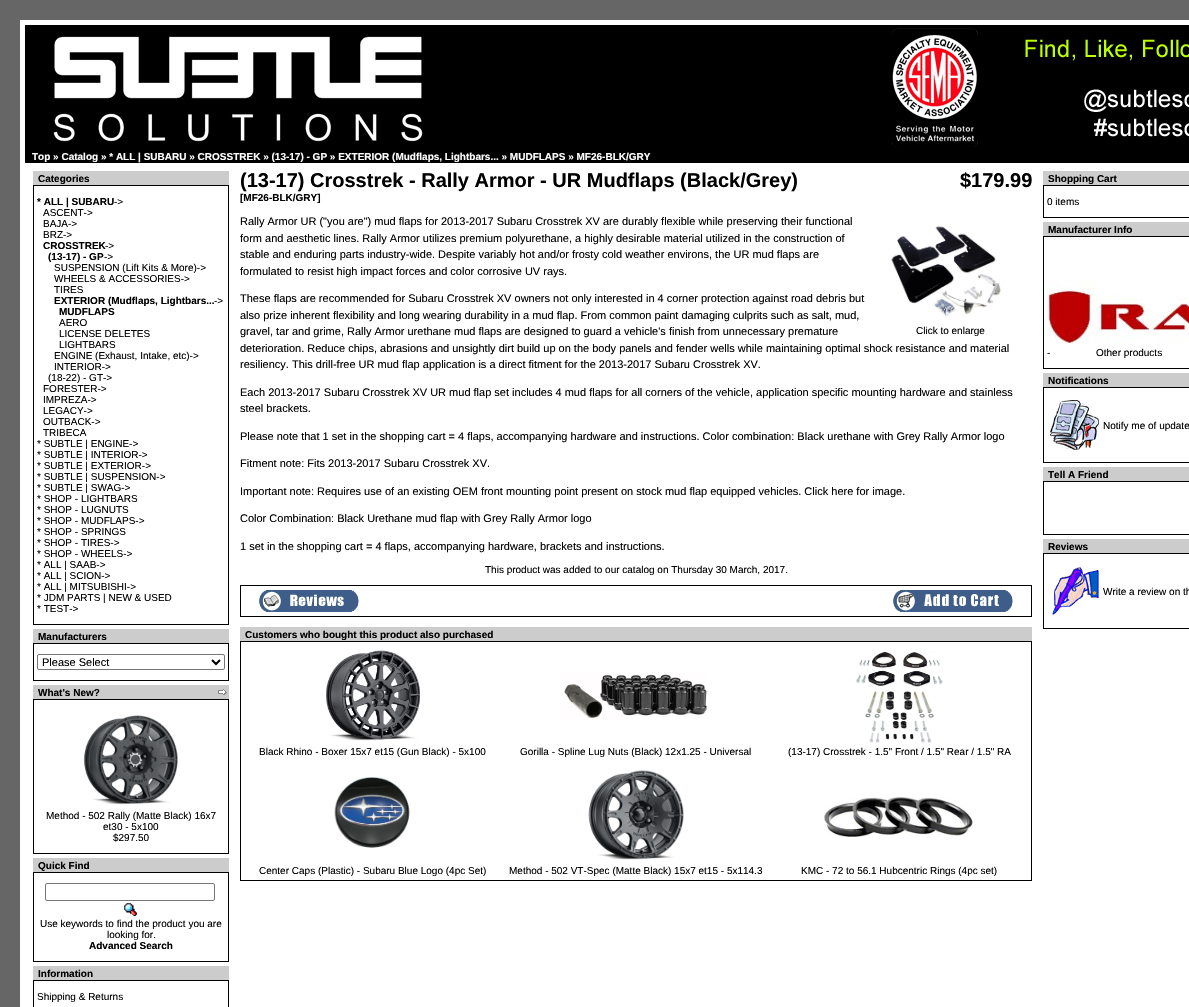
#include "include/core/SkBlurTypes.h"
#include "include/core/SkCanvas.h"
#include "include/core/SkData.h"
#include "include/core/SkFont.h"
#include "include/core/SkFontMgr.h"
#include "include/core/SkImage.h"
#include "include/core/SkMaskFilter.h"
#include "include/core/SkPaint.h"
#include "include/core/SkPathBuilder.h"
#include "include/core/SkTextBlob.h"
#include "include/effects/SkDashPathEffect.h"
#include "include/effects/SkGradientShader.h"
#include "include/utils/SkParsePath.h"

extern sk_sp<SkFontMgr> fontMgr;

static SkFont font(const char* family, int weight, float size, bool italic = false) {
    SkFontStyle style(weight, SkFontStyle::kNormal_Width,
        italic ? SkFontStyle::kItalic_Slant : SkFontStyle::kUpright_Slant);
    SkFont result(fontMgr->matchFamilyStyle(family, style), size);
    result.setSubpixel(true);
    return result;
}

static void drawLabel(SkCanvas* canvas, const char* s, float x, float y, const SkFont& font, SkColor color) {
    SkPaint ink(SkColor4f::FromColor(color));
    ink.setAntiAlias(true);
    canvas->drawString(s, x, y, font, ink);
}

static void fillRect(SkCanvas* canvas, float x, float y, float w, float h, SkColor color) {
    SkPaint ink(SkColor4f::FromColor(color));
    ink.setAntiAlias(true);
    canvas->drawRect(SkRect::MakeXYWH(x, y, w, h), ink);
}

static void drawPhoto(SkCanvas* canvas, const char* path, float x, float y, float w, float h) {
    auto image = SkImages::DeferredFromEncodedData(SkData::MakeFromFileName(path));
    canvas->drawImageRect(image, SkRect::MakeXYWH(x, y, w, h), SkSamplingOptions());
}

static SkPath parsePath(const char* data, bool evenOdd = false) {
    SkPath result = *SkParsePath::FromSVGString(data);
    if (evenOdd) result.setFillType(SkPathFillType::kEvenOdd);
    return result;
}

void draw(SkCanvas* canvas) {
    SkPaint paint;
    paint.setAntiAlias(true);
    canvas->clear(0xFF666666);
    fillRect(canvas, 20, 20, 1169, 987, 0xFFFFFFFF);
    fillRect(canvas, 25, 25, 1164, 138, 0xFF000000);
    drawPhoto(canvas, "assets/img1.png", 53, 28, 1136, 119);
    SkFont font1 = font("Liberation Sans", 700, 10);
    drawLabel(canvas, "Top » Catalog » * ALL | SUBARU » CROSSTREK » (13-17) - GP » EXTERIOR (Mudflaps, Lightbars... » MUDFLAPS » MF26-BLK/GRY", 32, 160, font1, 0xFFFFFFFF);
    fillRect(canvas, 33, 171, 196, 14, 0xFFCCCCCC);
    drawLabel(canvas, "Categories", 38, 182, font1, 0xFF000000);
    fillRect(canvas, 33, 185, 196, 440, 0xFF000000);
    fillRect(canvas, 34, 186, 194, 438, 0xFFFFFFFF);
    drawLabel(canvas, "* ALL | SUBARU", 37, 205, font1, 0xFF000000);
    SkFont font2 = font("Liberation Sans", 400, 10);
    drawLabel(canvas, "->", 114, 205, font2, 0xFF000000);
    drawLabel(canvas, "ASCENT->", 43, 216, font2, 0xFF000000);
    drawLabel(canvas, "BAJA->", 43, 227, font2, 0xFF000000);
    drawLabel(canvas, "BRZ->", 43, 238, font2, 0xFF000000);
    drawLabel(canvas, "CROSSTREK", 43, 249, font1, 0xFF000000);
    drawLabel(canvas, "->", 105, 249, font2, 0xFF000000);
    drawLabel(canvas, "(13-17) - GP", 48, 260, font1, 0xFF000000);
    drawLabel(canvas, "->", 104, 260, font2, 0xFF000000);
    drawLabel(canvas, "SUSPENSION (Lift Kits & More)->", 54, 271, font2, 0xFF000000);
    drawLabel(canvas, "WHEELS & ACCESSORIES->", 54, 282, font2, 0xFF000000);
    drawLabel(canvas, "TIRES", 54, 293, font2, 0xFF000000);
    drawLabel(canvas, "EXTERIOR (Mudflaps, Lightbars...", 54, 304, font1, 0xFF000000);
    drawLabel(canvas, "->", 214, 304, font2, 0xFF000000);
    drawLabel(canvas, "MUDFLAPS", 59, 315, font1, 0xFF000000);
    drawLabel(canvas, "AERO", 59, 326, font2, 0xFF000000);
    drawLabel(canvas, "LICENSE DELETES", 59, 337, font2, 0xFF000000);
    drawLabel(canvas, "LIGHTBARS", 59, 348, font2, 0xFF000000);
    drawLabel(canvas, "ENGINE (Exhaust, Intake, etc)->", 54, 359, font2, 0xFF000000);
    drawLabel(canvas, "INTERIOR->", 54, 370, font2, 0xFF000000);
    drawLabel(canvas, "(18-22) - GT->", 48, 381, font2, 0xFF000000);
    drawLabel(canvas, "FORESTER->", 43, 392, font2, 0xFF000000);
    drawLabel(canvas, "IMPREZA->", 43, 403, font2, 0xFF000000);
    drawLabel(canvas, "LEGACY->", 43, 414, font2, 0xFF000000);
    drawLabel(canvas, "OUTBACK->", 43, 425, font2, 0xFF000000);
    drawLabel(canvas, "TRIBECA", 43, 436, font2, 0xFF000000);
    drawLabel(canvas, "* SUBTLE | ENGINE->", 37, 447, font2, 0xFF000000);
    drawLabel(canvas, "* SUBTLE | INTERIOR->", 37, 458, font2, 0xFF000000);
    drawLabel(canvas, "* SUBTLE | EXTERIOR->", 37, 469, font2, 0xFF000000);
    drawLabel(canvas, "* SUBTLE | SUSPENSION->", 37, 480, font2, 0xFF000000);
    drawLabel(canvas, "* SUBTLE | SWAG->", 37, 491, font2, 0xFF000000);
    drawLabel(canvas, "* SHOP - LIGHTBARS", 37, 502, font2, 0xFF000000);
    drawLabel(canvas, "* SHOP - LUGNUTS", 37, 513, font2, 0xFF000000);
    drawLabel(canvas, "* SHOP - MUDFLAPS->", 37, 524, font2, 0xFF000000);
    drawLabel(canvas, "* SHOP - SPRINGS", 37, 535, font2, 0xFF000000);
    drawLabel(canvas, "* SHOP - TIRES->", 37, 546, font2, 0xFF000000);
    drawLabel(canvas, "* SHOP - WHEELS->", 37, 557, font2, 0xFF000000);
    drawLabel(canvas, "* ALL | SAAB->", 37, 568, font2, 0xFF000000);
    drawLabel(canvas, "* ALL | SCION->", 37, 579, font2, 0xFF000000);
    drawLabel(canvas, "* ALL | MITSUBISHI->", 37, 590, font2, 0xFF000000);
    drawLabel(canvas, "* JDM PARTS | NEW & USED", 37, 601, font2, 0xFF000000);
    drawLabel(canvas, "* TEST->", 37, 612, font2, 0xFF000000);
    fillRect(canvas, 33, 629, 196, 14, 0xFFCCCCCC);
    drawLabel(canvas, "Manufacturers", 38, 640, font1, 0xFF000000);
    fillRect(canvas, 33, 643, 196, 38, 0xFF000000);
    fillRect(canvas, 34, 644, 194, 36, 0xFFFFFFFF);
    paint.setStroke(true);
    paint.setStrokeWidth(1);
    paint.setColor(0xFF767676);
    canvas->drawRoundRect(SkRect::MakeXYWH(37.5f, 654.5f, 187, 15), 1.5f, 1.5f, paint);
    paint.setStrokeWidth(2);
    paint.setColor(0xFF000000);
    canvas->drawPath(parsePath("M212 660L216 664L220 660"), paint);
    SkFont font3 = font("Liberation Sans", 400, 11);
    drawLabel(canvas, "Please Select", 42, 666, font3, 0xFF000000);
    fillRect(canvas, 33, 685, 196, 14, 0xFFCCCCCC);
    drawLabel(canvas, "What's New?", 38, 696, font1, 0xFF000000);
    drawPhoto(canvas, "assets/img2.png", 218, 689, 9, 6);
    fillRect(canvas, 33, 699, 196, 155, 0xFF000000);
    fillRect(canvas, 34, 700, 194, 153, 0xFFFFFFFF);
    drawPhoto(canvas, "assets/img3.png", 83, 715, 95, 90);
    drawLabel(canvas, "Method - 502 Rally (Matte Black) 16x7", 46, 819, font2, 0xFF000000);
    drawLabel(canvas, "et30 - 5x100", 103, 830, font2, 0xFF000000);
    drawLabel(canvas, "$297.50", 113, 841, font2, 0xFF000000);
    fillRect(canvas, 33, 858, 196, 14, 0xFFCCCCCC);
    drawLabel(canvas, "Quick Find", 38, 869, font1, 0xFF000000);
    fillRect(canvas, 33, 872, 196, 90, 0xFF000000);
    fillRect(canvas, 34, 873, 194, 88, 0xFFFFFFFF);
    paint.setStrokeWidth(1);
    paint.setColor(0xFF767676);
    canvas->drawRoundRect(SkRect::MakeXYWH(45.5f, 883.5f, 169, 17), 1.5f, 1.5f, paint);
    drawPhoto(canvas, "assets/img4.png", 124, 903, 13, 13);
    drawLabel(canvas, "Use keywords to find the product you are", 40, 927, font2, 0xFF000000);
    drawLabel(canvas, "looking for.", 107, 938, font2, 0xFF000000);
    drawLabel(canvas, "Advanced Search", 89, 949, font1, 0xFF000000);
    fillRect(canvas, 33, 966, 196, 14, 0xFFCCCCCC);
    drawLabel(canvas, "Information", 38, 977, font1, 0xFF000000);
    fillRect(canvas, 33, 980, 196, 27, 0xFF000000);
    fillRect(canvas, 34, 981, 194, 26, 0xFFFFFFFF);
    drawLabel(canvas, "Shipping & Returns", 37, 1000, font2, 0xFF000000);
    SkFont font4 = font("Liberation Sans", 700, 20);
    drawLabel(canvas, "(13-17) Crosstrek - Rally Armor - UR Mudflaps (Black/Grey)", 240, 187, font4, 0xFF000000);
    drawLabel(canvas, "[MF26-BLK/GRY]", 240, 201, font1, 0xFF000000);
    drawLabel(canvas, "$179.99", 960, 187, font4, 0xFF000000);
    drawLabel(canvas, "Rally Armor UR (\"you are\") mud flaps for 2013-2017 Subaru Crosstrek XV are durably flexible while preserving their functional", 240, 225, font3, 0xFF000000);
    drawLabel(canvas, "form and aesthetic lines. Rally Armor utilizes premium polyurethane, a highly desirable material utilized in the construction of", 240, 242, font3, 0xFF000000);
    drawLabel(canvas, "stable and enduring parts industry-wide. Despite variably hot and/or frosty cold weather environs, the UR mud flaps are", 240, 258, font3, 0xFF000000);
    drawLabel(canvas, "formulated to resist high impact forces and color corrosive UV rays.", 240, 275, font3, 0xFF000000);
    drawLabel(canvas, "These flaps are recommended for Subaru Crosstrek XV owners not only interested in 4 corner protection against road debris but", 240, 302, font3, 0xFF000000);
    drawLabel(canvas, "also prize inherent flexibility and long wearing durability in a mud flap. From common paint damaging culprits such as salt, mud,", 240, 319, font3, 0xFF000000);
    drawLabel(canvas, "gravel, tar and grime, Rally Armor urethane mud flaps are designed to guard a vehicle's finish from unnecessary premature", 240, 335, font3, 0xFF000000);
    drawLabel(canvas, "deterioration. Reduce chips, abrasions and unsightly dirt build up on the body panels and fender wells while maintaining optimal shock resistance and material", 240, 352, font3, 0xFF000000);
    drawLabel(canvas, "resiliency. This drill-free UR mud flap application is a direct fitment for the 2013-2017 Subaru Crosstrek XV.", 240, 368, font3, 0xFF000000);
    drawPhoto(canvas, "assets/img5.png", 891, 226, 110, 91);
    drawLabel(canvas, "Click to enlarge", 916, 334, font2, 0xFF000000);
    drawLabel(canvas, "Each 2013-2017 Subaru Crosstrek XV UR mud flap set includes 4 mud flaps for all corners of the vehicle, application specific mounting hardware and stainless", 240, 396, font3, 0xFF000000);
    drawLabel(canvas, "steel brackets.", 240, 412, font3, 0xFF000000);
    drawLabel(canvas, "Please note that 1 set in the shopping cart = 4 flaps, accompanying hardware and instructions. Color combination: Black urethane with Grey Rally Armor logo", 240, 440, font3, 0xFF000000);
    drawLabel(canvas, "Fitment note: Fits 2013-2017 Subaru Crosstrek XV.", 240, 467, font3, 0xFF000000);
    drawLabel(canvas, "Important note: Requires use of an existing OEM front mounting point present on stock mud flap equipped vehicles. Click here for image.", 240, 495, font3, 0xFF000000);
    drawLabel(canvas, "Color Combination: Black Urethane mud flap with Grey Rally Armor logo", 240, 522, font3, 0xFF000000);
    drawLabel(canvas, "1 set in the shopping cart = 4 flaps, accompanying hardware, brackets and instructions.", 240, 550, font3, 0xFF000000);
    drawLabel(canvas, "This product was added to our catalog on Thursday 30 March, 2017.", 485, 573, font2, 0xFF000000);
    fillRect(canvas, 240, 585, 792, 32, 0xFF000000);
    fillRect(canvas, 241, 586, 790, 30, 0xFFFFFFFF);
    drawPhoto(canvas, "assets/img6.png", 259, 590, 100, 22);
    drawPhoto(canvas, "assets/img7.png", 893, 590, 120, 22);
    fillRect(canvas, 240, 627, 792, 14, 0xFFCCCCCC);
    drawLabel(canvas, "Customers who bought this product also purchased", 245, 638, font1, 0xFF000000);
    fillRect(canvas, 240, 641, 792, 240, 0xFF000000);
    fillRect(canvas, 241, 642, 790, 238, 0xFFFFFFFF);
    drawPhoto(canvas, "assets/img8.png", 326, 650, 94, 91);
    drawLabel(canvas, "Black Rhino - Boxer 15x7 et15 (Gun Black) - 5x100", 259, 755, font2, 0xFF000000);
    drawPhoto(canvas, "assets/img9.png", 564, 674, 143, 44);
    drawLabel(canvas, "Gorilla - Spline Lug Nuts (Black) 12x1.25 - Universal", 520, 755, font2, 0xFF000000);
    drawPhoto(canvas, "assets/img10.png", 856, 651, 87, 92);
    drawLabel(canvas, "(13-17) Crosstrek - 1.5\" Front / 1.5\" Rear / 1.5\" RA", 788, 755, font2, 0xFF000000);
    drawPhoto(canvas, "assets/img11.png", 334, 777, 76, 71);
    drawLabel(canvas, "Center Caps (Plastic) - Subaru Blue Logo (4pc Set)", 259, 874, font2, 0xFF000000);
    drawPhoto(canvas, "assets/img12.png", 588, 770, 96, 90);
    drawLabel(canvas, "Method - 502 VT-Spec (Matte Black) 15x7 et15 - 5x114.3", 509, 874, font2, 0xFF000000);
    drawPhoto(canvas, "assets/img13.png", 824, 797, 149, 40);
    drawLabel(canvas, "KMC - 72 to 56.1 Hubcentric Rings (4pc set)", 801, 874, font2, 0xFF000000);
    fillRect(canvas, 1043, 171, 146, 14, 0xFFCCCCCC);
    drawLabel(canvas, "Shopping Cart", 1048, 182, font1, 0xFF000000);
    fillRect(canvas, 1043, 185, 146, 33, 0xFF000000);
    fillRect(canvas, 1044, 186, 145, 31, 0xFFFFFFFF);
    drawLabel(canvas, "0 items", 1047, 205, font2, 0xFF000000);
    fillRect(canvas, 1043, 222, 146, 14, 0xFFCCCCCC);
    drawLabel(canvas, "Manufacturer Info", 1048, 233, font1, 0xFF000000);
    fillRect(canvas, 1043, 236, 146, 133, 0xFF000000);
    fillRect(canvas, 1044, 237, 145, 131, 0xFFFFFFFF);
    drawPhoto(canvas, "assets/img14.png", 1047, 280, 142, 64);
    drawLabel(canvas, "-", 1047, 356, font2, 0xFF000000);
    drawLabel(canvas, "Other products", 1096, 356, font2, 0xFF000000);
    fillRect(canvas, 1043, 373, 146, 14, 0xFFCCCCCC);
    drawLabel(canvas, "Notifications", 1048, 384, font1, 0xFF000000);
    fillRect(canvas, 1043, 387, 146, 76, 0xFF000000);
    fillRect(canvas, 1044, 388, 145, 74, 0xFFFFFFFF);
    drawPhoto(canvas, "assets/img15.png", 1050, 400, 49, 50);
    drawLabel(canvas, "Notify me of update", 1103, 429, font2, 0xFF000000);
    fillRect(canvas, 1043, 467, 146, 14, 0xFFCCCCCC);
    drawLabel(canvas, "Tell A Friend", 1048, 478, font1, 0xFF000000);
    fillRect(canvas, 1043, 481, 146, 54, 0xFF000000);
    fillRect(canvas, 1044, 482, 145, 52, 0xFFFFFFFF);
    fillRect(canvas, 1043, 539, 146, 14, 0xFFCCCCCC);
    drawLabel(canvas, "Reviews", 1048, 550, font1, 0xFF000000);
    fillRect(canvas, 1043, 553, 146, 76, 0xFF000000);
    fillRect(canvas, 1044, 554, 145, 74, 0xFFFFFFFF);
    drawPhoto(canvas, "assets/img16.png", 1052, 567, 47, 48);
    drawLabel(canvas, "Write a review on th", 1103, 595, font2, 0xFF000000);
}
